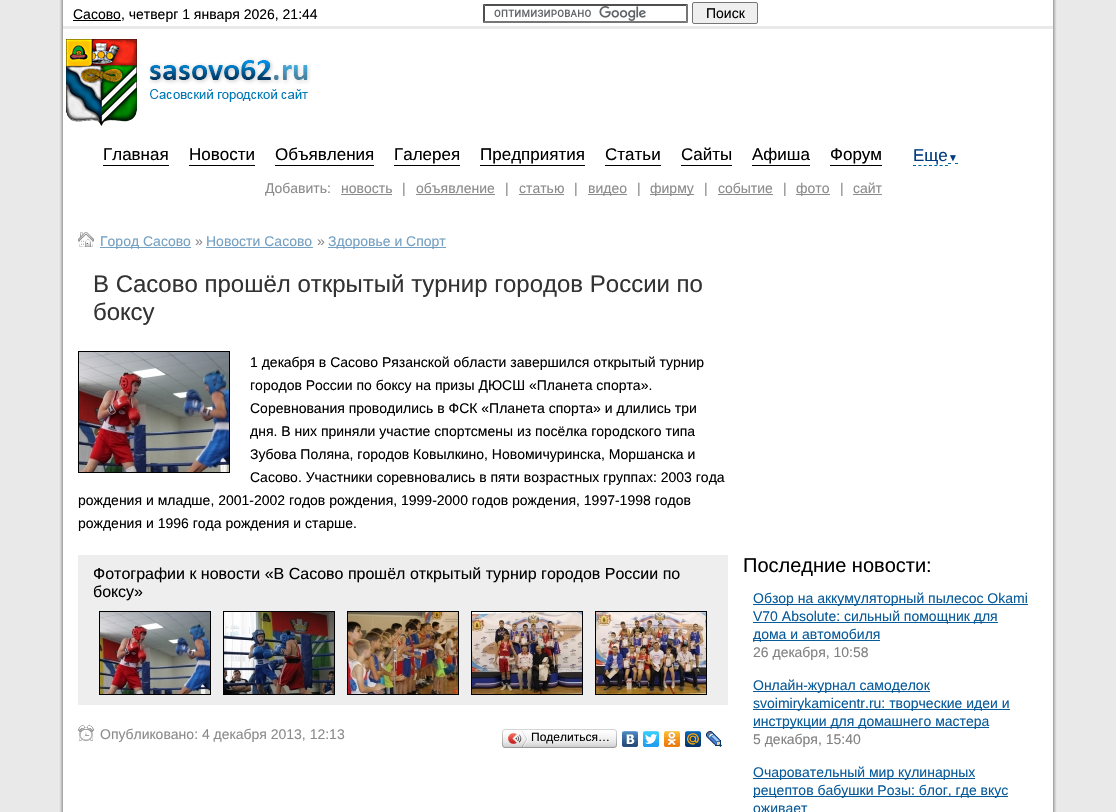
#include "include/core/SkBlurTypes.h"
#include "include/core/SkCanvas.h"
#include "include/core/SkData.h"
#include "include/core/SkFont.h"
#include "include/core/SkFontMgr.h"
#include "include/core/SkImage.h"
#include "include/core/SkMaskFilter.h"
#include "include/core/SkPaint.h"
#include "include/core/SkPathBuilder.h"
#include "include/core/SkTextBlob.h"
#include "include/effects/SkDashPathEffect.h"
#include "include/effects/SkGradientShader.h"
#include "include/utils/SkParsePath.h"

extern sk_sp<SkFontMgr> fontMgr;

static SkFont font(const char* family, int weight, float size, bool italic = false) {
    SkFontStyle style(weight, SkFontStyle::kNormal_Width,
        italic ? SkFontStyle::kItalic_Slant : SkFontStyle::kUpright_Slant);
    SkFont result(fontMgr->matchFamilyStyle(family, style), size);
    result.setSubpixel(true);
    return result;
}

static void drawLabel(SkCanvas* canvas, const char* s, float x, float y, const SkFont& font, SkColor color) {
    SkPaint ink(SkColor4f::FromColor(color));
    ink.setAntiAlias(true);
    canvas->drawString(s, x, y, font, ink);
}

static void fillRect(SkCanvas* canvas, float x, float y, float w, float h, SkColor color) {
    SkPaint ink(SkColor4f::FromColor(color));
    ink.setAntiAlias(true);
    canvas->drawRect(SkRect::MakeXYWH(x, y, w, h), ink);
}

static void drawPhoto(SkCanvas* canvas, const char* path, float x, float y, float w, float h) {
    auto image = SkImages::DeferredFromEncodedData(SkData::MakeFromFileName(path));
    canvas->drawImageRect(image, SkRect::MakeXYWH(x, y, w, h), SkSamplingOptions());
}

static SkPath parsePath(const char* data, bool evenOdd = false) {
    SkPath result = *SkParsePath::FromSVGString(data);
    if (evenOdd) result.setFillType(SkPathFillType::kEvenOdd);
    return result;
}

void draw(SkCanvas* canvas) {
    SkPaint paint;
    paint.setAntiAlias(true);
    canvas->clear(0xFFE9E9E9);
    drawPhoto(canvas, "assets/img1.png", 58, 0, 1000, 812);
    fillRect(canvas, 63, 26, 990, 3, 0xFFE9E9E9);
    fillRect(canvas, 73, 20, 48, 1, 0xFF000000);
    SkFont font1 = font("Liberation Sans", 400, 14);
    drawLabel(canvas, "Сасово, четверг 1 января 2026, 21:44", 73, 19, font1, 0xFF000000);
    drawPhoto(canvas, "assets/img2.png", 494, 6, 152, 15);
    paint.setColor(0xFF4F4F4F);
    canvas->drawPath(parsePath("M483 4H688L686 6H485Z"), paint);
    paint.setColor(0xFF767676);
    canvas->drawPath(parsePath("M688 4V23L686 21V6Z"), paint);
    canvas->drawPath(parsePath("M688 23H483L485 21H686Z"), paint);
    paint.setColor(0xFF4F4F4F);
    canvas->drawPath(parsePath("M483 23V4L485 6V21Z"), paint);
    paint.setColor(0xFFEFEFEF);
    canvas->drawRoundRect(SkRect::MakeXYWH(692.5f, 2.5f, 65, 21), 1.5f, 1.5f, paint);
    paint.setStroke(true);
    paint.setStrokeWidth(1);
    paint.setColor(0xFF767676);
    canvas->drawRoundRect(SkRect::MakeXYWH(692.5f, 2.5f, 65, 21), 1.5f, 1.5f, paint);
    drawLabel(canvas, "Поиск", 706, 18, font1, 0xFF000000);
    drawPhoto(canvas, "assets/img3.png", 66, 39, 245, 87);
    fillRect(canvas, 103, 165, 66, 1, 0xFF000000);
    SkFont font2 = font("Liberation Sans", 400, 17);
    drawLabel(canvas, "Главная", 103, 160, font2, 0xFF000000);
    fillRect(canvas, 189, 165, 66, 1, 0xFF000000);
    drawLabel(canvas, "Новости", 189, 160, font2, 0xFF000000);
    fillRect(canvas, 275, 165, 99, 1, 0xFF000000);
    drawLabel(canvas, "Объявления", 275, 160, font2, 0xFF000000);
    fillRect(canvas, 394, 165, 66, 1, 0xFF000000);
    drawLabel(canvas, "Галерея", 394, 160, font2, 0xFF000000);
    fillRect(canvas, 480, 165, 105, 1, 0xFF000000);
    drawLabel(canvas, "Предприятия", 480, 160, font2, 0xFF000000);
    fillRect(canvas, 605, 165, 56, 1, 0xFF000000);
    drawLabel(canvas, "Статьи", 605, 160, font2, 0xFF000000);
    fillRect(canvas, 681, 165, 51, 1, 0xFF000000);
    drawLabel(canvas, "Сайты", 681, 160, font2, 0xFF000000);
    fillRect(canvas, 752, 165, 58, 1, 0xFF000000);
    drawLabel(canvas, "Афиша", 752, 160, font2, 0xFF000000);
    fillRect(canvas, 830, 165, 52, 1, 0xFF000000);
    drawLabel(canvas, "Форум", 830, 160, font2, 0xFF000000);
    drawLabel(canvas, "Еще", 913, 161, font2, 0xFF003A81);
    SkFont font3 = font("Liberation Sans", 400, 10);
    drawLabel(canvas, "▼", 948, 161, font3, 0xFF003A81);
    paint.setColor(0xFF006699);
    paint.setPathEffect(SkDashPathEffect::Make({{3, 2.33f}}, 0));
    canvas->drawPath(parsePath("M913 165.5H948"), paint);
    paint.setPathEffect(nullptr);
    canvas->drawPath(parsePath("M948 163.5H951M955 163.5H958"), paint);
    drawLabel(canvas, "Добавить:", 265, 193, font1, 0xFF8B8B8B);
    drawLabel(canvas, "новость", 341, 193, font1, 0xFF8B8B8B);
    fillRect(canvas, 341, 194, 51, 1, 0xFF8B8B8B);
    drawLabel(canvas, "|", 402, 193, font1, 0xFF8B8B8B);
    drawLabel(canvas, "объявление", 416, 193, font1, 0xFF8B8B8B);
    fillRect(canvas, 416, 194, 79, 1, 0xFF8B8B8B);
    drawLabel(canvas, "|", 505, 193, font1, 0xFF8B8B8B);
    drawLabel(canvas, "статью", 519, 193, font1, 0xFF8B8B8B);
    fillRect(canvas, 519, 194, 45, 1, 0xFF8B8B8B);
    drawLabel(canvas, "|", 574, 193, font1, 0xFF8B8B8B);
    fillRect(canvas, 588, 194, 39, 1, 0xFF8B8B8B);
    drawLabel(canvas, "видео", 588, 193, font1, 0xFF8B8B8B);
    drawLabel(canvas, "|", 637, 193, font1, 0xFF8B8B8B);
    fillRect(canvas, 650, 194, 44, 1, 0xFF8B8B8B);
    drawLabel(canvas, "фирму", 650, 193, font1, 0xFF8B8B8B);
    drawLabel(canvas, "|", 704, 193, font1, 0xFF8B8B8B);
    drawLabel(canvas, "событие", 718, 193, font1, 0xFF8B8B8B);
    fillRect(canvas, 718, 194, 55, 1, 0xFF8B8B8B);
    drawLabel(canvas, "|", 783, 193, font1, 0xFF8B8B8B);
    fillRect(canvas, 796, 194, 34, 1, 0xFF8B8B8B);
    drawLabel(canvas, "фото", 796, 193, font1, 0xFF8B8B8B);
    drawLabel(canvas, "|", 840, 193, font1, 0xFF8B8B8B);
    drawLabel(canvas, "сайт", 853, 193, font1, 0xFF8B8B8B);
    fillRect(canvas, 853, 194, 29, 1, 0xFF8B8B8B);
    drawPhoto(canvas, "assets/img4.png", 78, 232, 16, 15);
    fillRect(canvas, 100, 247, 91, 1, 0xFF74A0C2);
    drawLabel(canvas, "Город Сасово", 100, 246, font1, 0xFF74A0C2);
    drawLabel(canvas, "»", 195, 246, font1, 0xFF8B8B8B);
    drawLabel(canvas, "Новости Сасово", 206, 246, font1, 0xFF74A0C2);
    fillRect(canvas, 206, 247, 107, 1, 0xFF74A0C2);
    drawLabel(canvas, "»", 317, 246, font1, 0xFF8B8B8B);
    fillRect(canvas, 328, 247, 118, 1, 0xFF74A0C2);
    drawLabel(canvas, "Здоровье и Спорт", 328, 246, font1, 0xFF74A0C2);
    SkFont font4 = font("Liberation Sans", 400, 24);
    drawLabel(canvas, "В Сасово прошёл открытый турнир городов России по", 93, 292, font4, 0xFF333333);
    drawLabel(canvas, "боксу", 93, 320, font4, 0xFF333333);
    paint.setColor(0xFF000000);
    canvas->drawRect(SkRect::MakeXYWH(78.5f, 351.5f, 151, 121), paint);
    drawPhoto(canvas, "assets/img5.png", 79, 352, 150, 120);
    drawLabel(canvas, "1 декабря в Сасово Рязанской области завершился открытый турнир", 250, 367, font1, 0xFF000000);
    drawLabel(canvas, "городов России по боксу на призы ДЮСШ «Планета спорта».", 250, 390, font1, 0xFF000000);
    drawLabel(canvas, "Соревнования проводились в ФСК «Планета спорта» и длились три", 250, 413, font1, 0xFF000000);
    drawLabel(canvas, "дня. В них приняли участие спортсмены из посёлка городского типа", 250, 436, font1, 0xFF000000);
    drawLabel(canvas, "Зубова Поляна, городов Ковылкино, Новомичуринска, Моршанска и", 250, 459, font1, 0xFF000000);
    drawLabel(canvas, "Сасово. Участники соревновались в пяти возрастных группах: 2003 года", 250, 482, font1, 0xFF000000);
    drawLabel(canvas, "рождения и младше, 2001-2002 годов рождения, 1999-2000 годов рождения, 1997-1998 годов", 78, 505, font1, 0xFF000000);
    drawLabel(canvas, "рождения и 1996 года рождения и старше.", 78, 528, font1, 0xFF000000);
    fillRect(canvas, 78, 555, 650, 150, 0xFFEEEEEE);
    SkFont font5 = font("Liberation Sans", 400, 16);
    drawLabel(canvas, "Фотографии к новости «В Сасово прошёл открытый турнир городов России по", 93, 579, font5, 0xFF000000);
    drawLabel(canvas, "боксу»", 93, 597, font5, 0xFF000000);
    canvas->drawRect(SkRect::MakeXYWH(99.5f, 611.5f, 111, 83), paint);
    drawPhoto(canvas, "assets/img6.png", 100, 612, 110, 82);
    canvas->drawRect(SkRect::MakeXYWH(223.5f, 611.5f, 111, 83), paint);
    drawPhoto(canvas, "assets/img7.png", 224, 612, 110, 82);
    canvas->drawRect(SkRect::MakeXYWH(347.5f, 611.5f, 111, 83), paint);
    drawPhoto(canvas, "assets/img8.png", 348, 612, 110, 82);
    canvas->drawRect(SkRect::MakeXYWH(471.5f, 611.5f, 111, 83), paint);
    drawPhoto(canvas, "assets/img9.png", 472, 612, 110, 82);
    canvas->drawRect(SkRect::MakeXYWH(595.5f, 611.5f, 111, 83), paint);
    drawPhoto(canvas, "assets/img10.png", 596, 612, 110, 82);
    drawPhoto(canvas, "assets/img11.png", 78, 725, 16, 16);
    drawLabel(canvas, "Опубликовано: 4 декабря 2013, 12:13", 100, 739, font1, 0xFF8B8B8B);
    drawPhoto(canvas, "assets/img12.png", 505, 729, 109, 19);
    drawPhoto(canvas, "assets/img13.png", 502, 729, 3, 19);
    drawPhoto(canvas, "assets/img14.png", 508, 730, 20, 17);
    SkFont font6 = font("Liberation Sans", 400, 12);
    drawLabel(canvas, "Поделиться…", 531, 741, font6, 0xFF000000);
    drawPhoto(canvas, "assets/img15.png", 614, 729, 3, 19);
    drawPhoto(canvas, "assets/img16.png", 622, 731, 16, 16);
    drawPhoto(canvas, "assets/img17.png", 643, 731, 16, 16);
    drawPhoto(canvas, "assets/img18.png", 664, 731, 16, 16);
    drawPhoto(canvas, "assets/img19.png", 685, 731, 16, 16);
    drawPhoto(canvas, "assets/img20.png", 706, 731, 16, 16);
    SkFont font7 = font("Liberation Sans", 400, 20);
    drawLabel(canvas, "Последние новости:", 743, 572, font7, 0xFF000000);
    fillRect(canvas, 753, 604, 275, 1, 0xFF095B9A);
    drawLabel(canvas, "Обзор на аккумуляторный пылесос Okami", 753, 603, font1, 0xFF095B9A);
    fillRect(canvas, 753, 622, 245, 1, 0xFF095B9A);
    drawLabel(canvas, "V70 Absolute: сильный помощник для", 753, 621, font1, 0xFF095B9A);
    fillRect(canvas, 753, 640, 127, 1, 0xFF095B9A);
    drawLabel(canvas, "дома и автомобиля", 753, 639, font1, 0xFF095B9A);
    drawLabel(canvas, "26 декабря, 10:58", 753, 657, font1, 0xFF818181);
    fillRect(canvas, 753, 691, 177, 1, 0xFF095B9A);
    drawLabel(canvas, "Онлайн-журнал самоделок", 753, 690, font1, 0xFF095B9A);
    fillRect(canvas, 753, 709, 257, 1, 0xFF095B9A);
    drawLabel(canvas, "svoimirykamicentr.ru: творческие идеи и", 753, 708, font1, 0xFF095B9A);
    fillRect(canvas, 753, 727, 236, 1, 0xFF095B9A);
    drawLabel(canvas, "инструкции для домашнего мастера", 753, 726, font1, 0xFF095B9A);
    drawLabel(canvas, "5 декабря, 15:40", 753, 744, font1, 0xFF818181);
    fillRect(canvas, 753, 778, 222, 1, 0xFF095B9A);
    drawLabel(canvas, "Очаровательный мир кулинарных", 753, 777, font1, 0xFF095B9A);
    fillRect(canvas, 753, 796, 255, 1, 0xFF095B9A);
    drawLabel(canvas, "рецептов бабушки Розы: блог, где вкус", 753, 795, font1, 0xFF095B9A);
    drawLabel(canvas, "оживает", 753, 813, font1, 0xFF095B9A);
}
